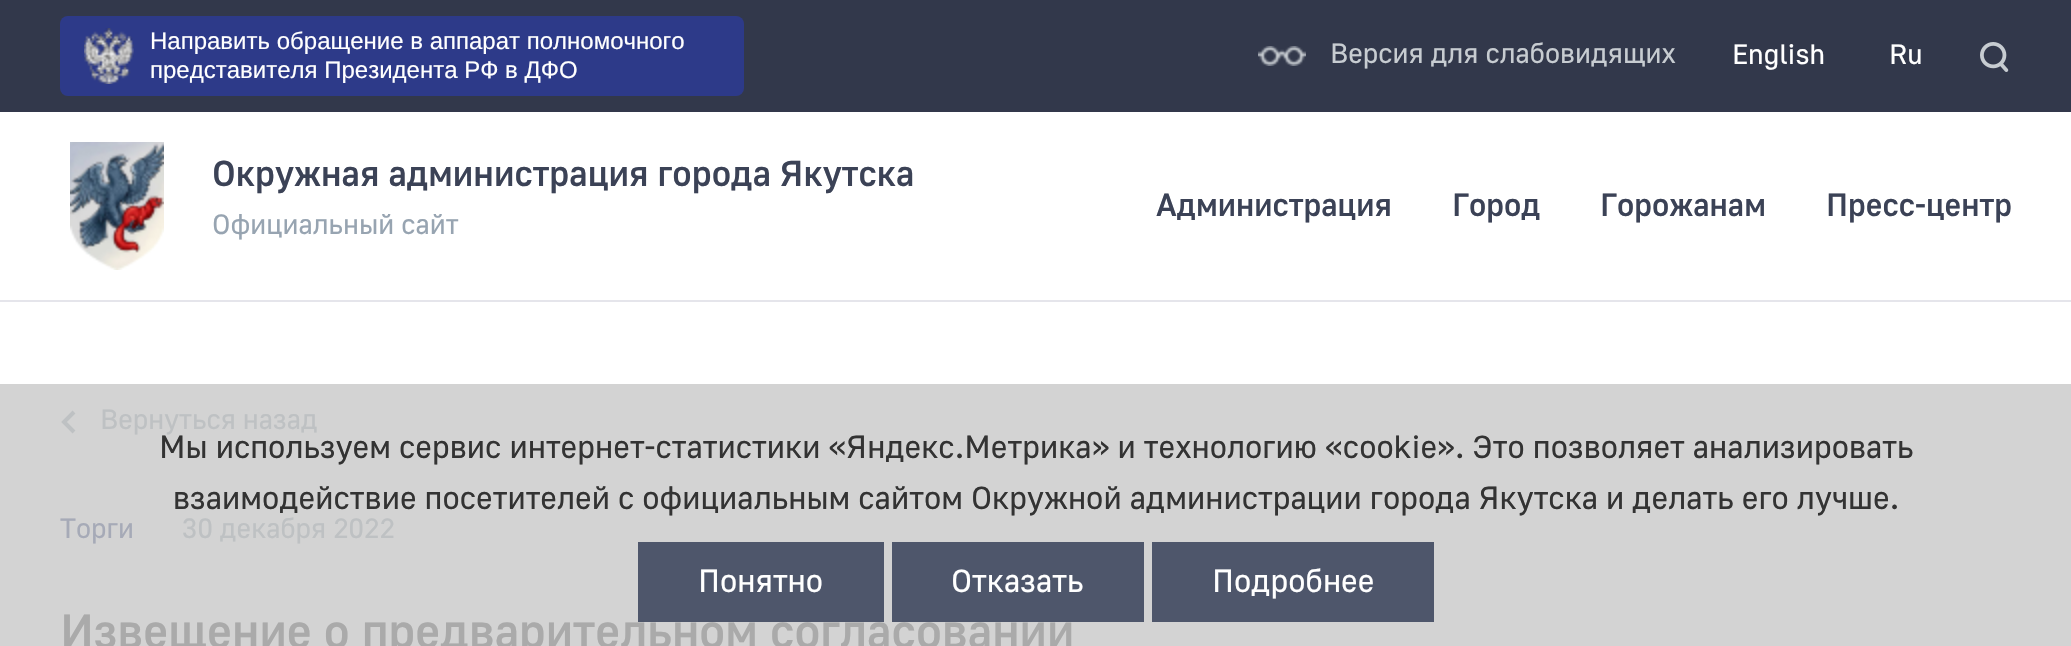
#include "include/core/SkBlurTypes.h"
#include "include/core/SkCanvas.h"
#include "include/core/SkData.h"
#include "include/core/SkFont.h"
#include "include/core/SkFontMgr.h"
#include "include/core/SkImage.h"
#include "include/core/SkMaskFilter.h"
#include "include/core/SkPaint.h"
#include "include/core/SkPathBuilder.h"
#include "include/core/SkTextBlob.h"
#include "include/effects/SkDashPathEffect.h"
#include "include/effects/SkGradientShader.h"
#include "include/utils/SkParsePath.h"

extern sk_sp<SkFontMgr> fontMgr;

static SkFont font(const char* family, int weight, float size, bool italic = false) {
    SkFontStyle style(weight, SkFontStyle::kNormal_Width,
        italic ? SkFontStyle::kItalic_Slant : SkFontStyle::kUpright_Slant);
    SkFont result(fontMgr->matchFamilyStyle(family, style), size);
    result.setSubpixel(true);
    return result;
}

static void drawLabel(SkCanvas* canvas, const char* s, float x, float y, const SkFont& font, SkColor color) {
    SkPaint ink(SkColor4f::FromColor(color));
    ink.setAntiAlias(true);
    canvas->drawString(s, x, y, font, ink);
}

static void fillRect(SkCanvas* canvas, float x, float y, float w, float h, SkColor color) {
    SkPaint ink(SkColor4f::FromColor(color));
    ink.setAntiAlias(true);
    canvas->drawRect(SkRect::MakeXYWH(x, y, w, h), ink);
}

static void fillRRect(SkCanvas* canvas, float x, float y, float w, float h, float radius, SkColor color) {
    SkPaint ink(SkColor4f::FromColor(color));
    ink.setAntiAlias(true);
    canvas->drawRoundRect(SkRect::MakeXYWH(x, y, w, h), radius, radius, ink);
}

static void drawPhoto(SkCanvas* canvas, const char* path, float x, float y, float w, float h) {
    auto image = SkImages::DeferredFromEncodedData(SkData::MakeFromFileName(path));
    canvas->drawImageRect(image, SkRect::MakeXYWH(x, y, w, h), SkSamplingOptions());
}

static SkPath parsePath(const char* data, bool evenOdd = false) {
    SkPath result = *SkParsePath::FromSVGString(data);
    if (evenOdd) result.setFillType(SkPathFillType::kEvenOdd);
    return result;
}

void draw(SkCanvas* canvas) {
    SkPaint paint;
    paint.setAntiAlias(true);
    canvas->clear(0xFFFFFFFF);
    fillRect(canvas, 0, 384, 2071, 262, 0xFFD3D3D3);
    fillRect(canvas, 0, 0, 2071, 112, 0xFF32384B);
    fillRRect(canvas, 60, 16, 684, 80, 8, 0xFF2D3A89);
    drawPhoto(canvas, "assets/img1.png", 84, 28, 50, 56);
    SkFont font1 = font("Liberation Sans", 400, 24);
    drawLabel(canvas, "Направить обращение в аппарат полномочного", 150, 49, font1, 0xFFFFFFFF);
    drawLabel(canvas, "представителя Президента РФ в ДФО", 150, 78, font1, 0xFFFFFFFF);
    drawPhoto(canvas, "assets/img2.png", 1258, 46, 48, 20);
    SkFont font2 = font("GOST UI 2", 400, 28);
    drawLabel(canvas, "Версия для слабовидящих", 1330, 63, font2, 0xFFC7CCD1);
    drawLabel(canvas, "English", 1732, 64, font2, 0xFFFFFFFF);
    drawLabel(canvas, "Ru", 1889, 64, font2, 0xFFFFFFFF);
    drawPhoto(canvas, "assets/img3.png", 1980, 42, 29, 30);
    fillRect(canvas, 0, 300, 2071, 2, 0xFFE5E5EB);
    drawPhoto(canvas, "assets/img4.png", 70, 142, 94, 128);
    SkFont font3 = font("GOST UI 2", 500, 36);
    drawLabel(canvas, "Окружная администрация города Якутска", 212, 186, font3, 0xFF3B4256);
    drawLabel(canvas, "Официальный сайт", 212, 234, font2, 0xFF97A4B1);
    SkFont font4 = font("GOST UI 2", 500, 32);
    drawLabel(canvas, "Администрация", 1156, 216, font4, 0xFF3B4256);
    drawLabel(canvas, "Город", 1452, 216, font4, 0xFF3B4256);
    drawLabel(canvas, "Горожанам", 1600, 216, font4, 0xFF3B4256);
    drawLabel(canvas, "Пресс-центр", 1826, 216, font4, 0xFF3B4256);
    paint.setStroke(true);
    paint.setStrokeWidth(4);
    paint.setColor(0xFFBEC1C3);
    canvas->drawPath(parsePath("M74 412L64 422L74 432"), paint);
    drawLabel(canvas, "Вернуться назад", 100, 429, font2, 0xFFBEC1C3);
    drawLabel(canvas, "Торги", 60, 538, font2, 0xFFA6AAB7);
    drawLabel(canvas, "30 декабря 2022", 182, 538, font2, 0xFFBEC1C3);
    SkFont font5 = font("GOST UI 2", 500, 48);
    drawLabel(canvas, "Извещение о предварительном согласовании", 60, 648, font5, 0xFFAAAAAA);
    SkFont font6 = font("GOST UI 2", 400, 32);
    drawLabel(canvas, "Мы используем сервис интернет-статистики «Яндекс.Метрика» и технологию «cookie». Это позволяет анализировать", 159, 458, font6, 0xFF333333);
    drawLabel(canvas, "взаимодействие посетителей с официальным сайтом Окружной администрации города Якутска и делать его лучше.", 173, 509, font6, 0xFF333333);
    fillRect(canvas, 638, 542, 246, 80, 0xFF4E566B);
    drawLabel(canvas, "Понятно", 698, 592, font6, 0xFFFFFFFF);
    fillRect(canvas, 892, 542, 252, 80, 0xFF4E566B);
    drawLabel(canvas, "Отказать", 951, 592, font6, 0xFFFFFFFF);
    fillRect(canvas, 1152, 542, 282, 80, 0xFF4E566B);
    drawLabel(canvas, "Подробнее", 1212, 592, font6, 0xFFFFFFFF);
}
